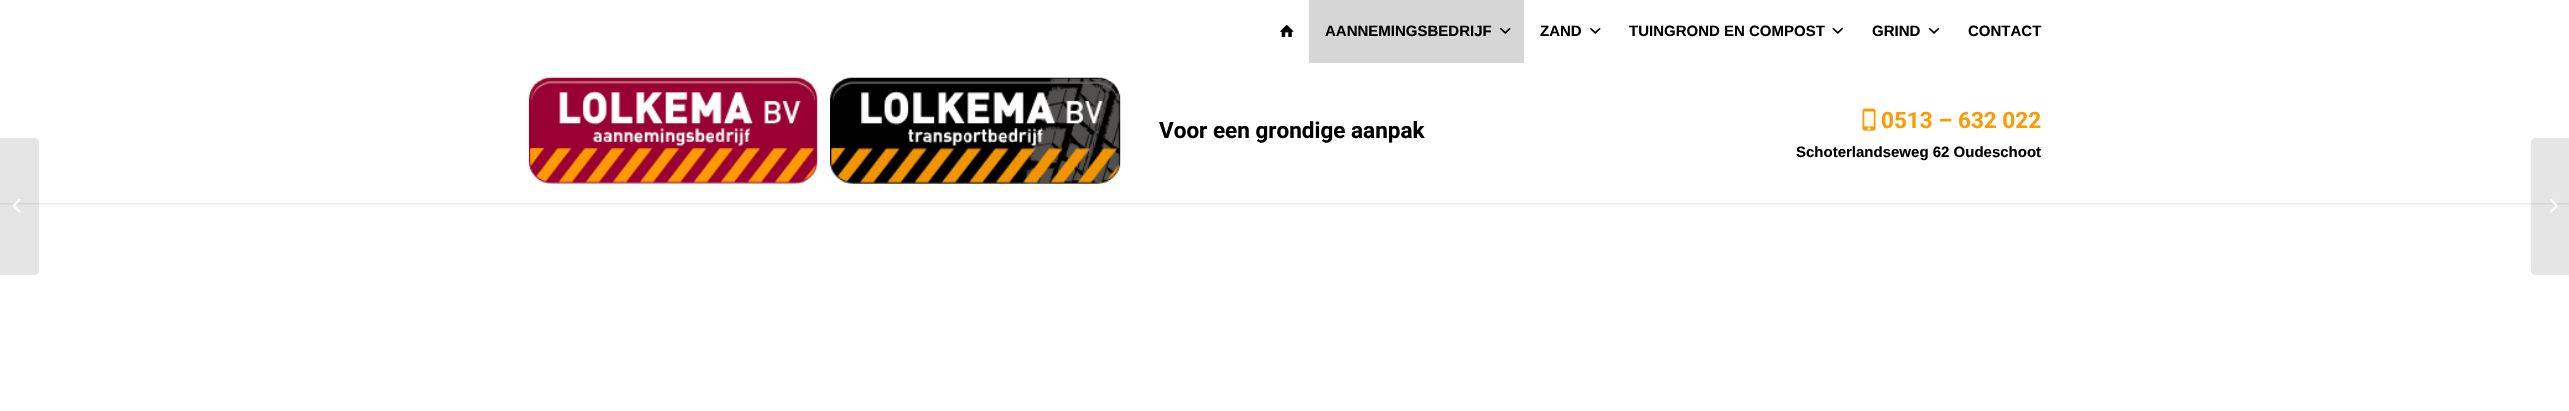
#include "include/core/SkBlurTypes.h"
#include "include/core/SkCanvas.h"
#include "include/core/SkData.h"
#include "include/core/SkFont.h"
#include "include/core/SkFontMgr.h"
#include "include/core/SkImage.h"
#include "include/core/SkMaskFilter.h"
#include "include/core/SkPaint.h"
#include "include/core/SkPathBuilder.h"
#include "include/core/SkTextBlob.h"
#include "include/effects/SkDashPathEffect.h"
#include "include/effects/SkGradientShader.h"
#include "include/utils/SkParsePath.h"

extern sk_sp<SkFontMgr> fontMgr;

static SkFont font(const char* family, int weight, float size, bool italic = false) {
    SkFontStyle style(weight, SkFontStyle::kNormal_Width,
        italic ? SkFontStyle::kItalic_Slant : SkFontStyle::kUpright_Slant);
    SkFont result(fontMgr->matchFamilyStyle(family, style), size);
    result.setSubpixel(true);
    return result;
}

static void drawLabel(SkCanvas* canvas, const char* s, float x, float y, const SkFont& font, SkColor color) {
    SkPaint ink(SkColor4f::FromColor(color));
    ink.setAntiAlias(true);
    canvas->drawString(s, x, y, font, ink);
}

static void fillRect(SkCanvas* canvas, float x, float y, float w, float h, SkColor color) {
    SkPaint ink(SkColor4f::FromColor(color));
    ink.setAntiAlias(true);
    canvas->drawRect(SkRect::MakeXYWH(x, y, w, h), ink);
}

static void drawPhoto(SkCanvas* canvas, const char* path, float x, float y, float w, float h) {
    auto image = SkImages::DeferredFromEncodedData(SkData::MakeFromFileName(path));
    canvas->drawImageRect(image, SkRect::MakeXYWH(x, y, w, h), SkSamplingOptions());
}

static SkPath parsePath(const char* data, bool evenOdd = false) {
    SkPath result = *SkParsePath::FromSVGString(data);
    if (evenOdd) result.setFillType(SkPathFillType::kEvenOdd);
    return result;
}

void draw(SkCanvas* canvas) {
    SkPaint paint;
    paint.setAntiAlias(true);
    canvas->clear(0xFFFFFFFF);
    paint.setColor(0x1A000000);
    paint.setMaskFilter(SkMaskFilter::MakeBlur(kNormal_SkBlurStyle, 1));
    canvas->drawRect(SkRect::MakeXYWH(-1, -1, 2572, 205), paint);
    paint.setMaskFilter(nullptr);
    fillRect(canvas, 0, 0, 2569, 203, 0xFFFFFFFF);
    drawPhoto(canvas, "assets/img1.png", 1280, 25, 14, 12);
    fillRect(canvas, 1309, 0, 215, 63, 0xFFD6D6D6);
    SkFont font1 = font("Liberation Sans", 700, 15);
    drawLabel(canvas, "AANNEMINGSBEDRIJF", 1325, 36, font1, 0xFF000000);
    drawPhoto(canvas, "assets/img2.png", 1500, 27, 11, 7);
    drawLabel(canvas, "ZAND", 1540, 36, font1, 0xFF000000);
    drawPhoto(canvas, "assets/img3.png", 1590, 27, 11, 7);
    drawLabel(canvas, "TUINGROND EN COMPOST", 1629, 36, font1, 0xFF000000);
    drawPhoto(canvas, "assets/img4.png", 1832, 27, 11, 7);
    drawLabel(canvas, "GRIND", 1872, 36, font1, 0xFF000000);
    drawPhoto(canvas, "assets/img5.png", 1928, 27, 12, 7);
    drawLabel(canvas, "CONTACT", 1968, 36, font1, 0xFF000000);
    drawPhoto(canvas, "assets/img6.png", 528, 77, 290, 107);
    drawPhoto(canvas, "assets/img7.png", 830, 77, 291, 107);
    SkFont font2 = font("Roboto", 700, 22.5f);
    drawLabel(canvas, "Voor een grondige aanpak", 1159, 138, font2, 0xFF000000);
    drawPhoto(canvas, "assets/img8.png", 1862, 108, 14, 23);
    drawLabel(canvas, "0513 – 632 022", 1881, 128, font2, 0xFFFF9900);
    drawLabel(canvas, "Schoterlandseweg 62 Oudeschoot", 1796, 157, font1, 0xFF000000);
    canvas->drawPath(parsePath("M0 138H34C37 138 39 140 39 143V270C39 273 37 275 34 275H0Z"), paint);
    drawPhoto(canvas, "assets/img9.png", 12, 199, 9, 14);
    canvas->drawPath(parsePath("M2536 138H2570V275H2536C2533 275 2531 273 2531 270V143C2531 140 2533 138 2536 138Z"), paint);
    drawPhoto(canvas, "assets/img10.png", 2550, 199, 8, 14);
}
